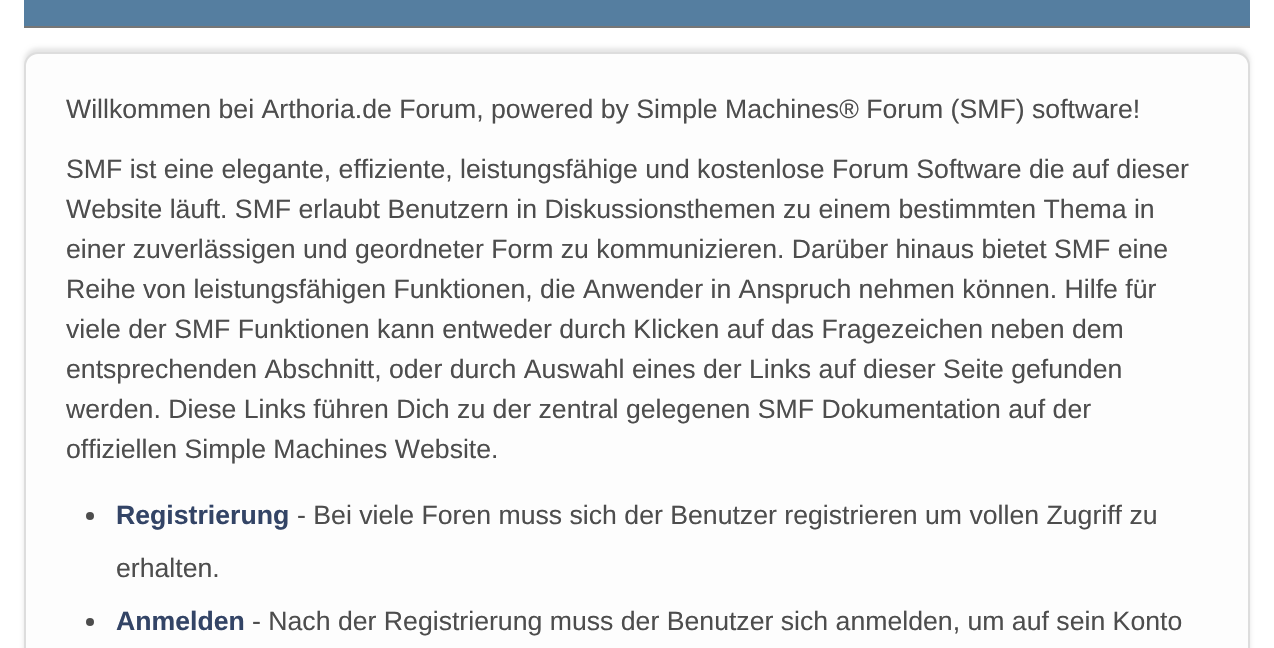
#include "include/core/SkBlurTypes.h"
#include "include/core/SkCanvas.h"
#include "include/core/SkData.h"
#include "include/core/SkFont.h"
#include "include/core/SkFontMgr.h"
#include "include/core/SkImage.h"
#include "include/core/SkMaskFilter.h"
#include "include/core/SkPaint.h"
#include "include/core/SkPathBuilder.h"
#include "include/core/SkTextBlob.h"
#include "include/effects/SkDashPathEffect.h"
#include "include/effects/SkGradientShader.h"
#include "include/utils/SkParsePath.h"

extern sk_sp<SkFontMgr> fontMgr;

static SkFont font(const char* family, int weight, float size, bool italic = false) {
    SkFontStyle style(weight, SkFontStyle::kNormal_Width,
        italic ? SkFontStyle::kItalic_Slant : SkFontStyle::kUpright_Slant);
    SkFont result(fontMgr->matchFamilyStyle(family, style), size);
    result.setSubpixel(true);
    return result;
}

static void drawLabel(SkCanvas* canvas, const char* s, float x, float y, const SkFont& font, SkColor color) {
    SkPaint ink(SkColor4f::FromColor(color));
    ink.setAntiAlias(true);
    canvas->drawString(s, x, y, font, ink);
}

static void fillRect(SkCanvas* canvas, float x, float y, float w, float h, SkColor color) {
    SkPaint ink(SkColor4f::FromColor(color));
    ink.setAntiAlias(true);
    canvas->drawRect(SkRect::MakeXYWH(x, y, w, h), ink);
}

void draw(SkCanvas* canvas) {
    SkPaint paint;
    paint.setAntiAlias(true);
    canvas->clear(0xFFFFFFFF);
    fillRect(canvas, 24, 0, 1226, 26, 0xFF557EA0);
    fillRect(canvas, 24, 26, 1226, 2, 0xFF777777);
    paint.setColor(0x1A000000);
    paint.setMaskFilter(SkMaskFilter::MakeBlur(kNormal_SkBlurStyle, 2));
    canvas->drawRoundRect(SkRect::MakeXYWH(24, 48, 1226, 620), 14, 14, paint);
    paint.setMaskFilter(nullptr);
    paint.setColor(0xFFFDFDFD);
    canvas->drawRoundRect(SkRect::MakeXYWH(25, 53, 1224, 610), 13, 13, paint);
    paint.setStroke(true);
    paint.setStrokeWidth(2);
    paint.setColor(0xFFDDDDDD);
    canvas->drawRoundRect(SkRect::MakeXYWH(25, 53, 1224, 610), 13, 13, paint);
    SkFont font1 = font("Liberation Sans", 400, 26.65f);
    drawLabel(canvas, "Willkommen bei Arthoria.de Forum, powered by Simple Machines® Forum (SMF) software!", 66, 118, font1, 0xFF4D4D4D);
    drawLabel(canvas, "SMF ist eine elegante, effiziente, leistungsfähige und kostenlose Forum Software die auf dieser", 66, 178, font1, 0xFF4D4D4D);
    drawLabel(canvas, "Website läuft. SMF erlaubt Benutzern in Diskussionsthemen zu einem bestimmten Thema in", 66, 218, font1, 0xFF4D4D4D);
    drawLabel(canvas, "einer zuverlässigen und geordneter Form zu kommunizieren. Darüber hinaus bietet SMF eine", 66, 258, font1, 0xFF4D4D4D);
    drawLabel(canvas, "Reihe von leistungsfähigen Funktionen, die Anwender in Anspruch nehmen können. Hilfe für", 66, 298, font1, 0xFF4D4D4D);
    drawLabel(canvas, "viele der SMF Funktionen kann entweder durch Klicken auf das Fragezeichen neben dem", 66, 338, font1, 0xFF4D4D4D);
    drawLabel(canvas, "entsprechenden Abschnitt, oder durch Auswahl eines der Links auf dieser Seite gefunden", 66, 378, font1, 0xFF4D4D4D);
    drawLabel(canvas, "werden. Diese Links führen Dich zu der zentral gelegenen SMF Dokumentation auf der", 66, 418, font1, 0xFF4D4D4D);
    drawLabel(canvas, "offiziellen Simple Machines Website.", 66, 458, font1, 0xFF4D4D4D);
    paint.setStroke(false);
    paint.setColor(0xFF4D4D4D);
    canvas->drawCircle(90, 516, 4, paint);
    SkFont font2 = font("Liberation Sans", 700, 26.65f);
    drawLabel(canvas, "Registrierung", 116, 524, font2, 0xFF334466);
    drawLabel(canvas, "- Bei viele Foren muss sich der Benutzer registrieren um vollen Zugriff zu", 297, 524, font1, 0xFF4D4D4D);
    drawLabel(canvas, "erhalten.", 116, 577, font1, 0xFF4D4D4D);
    canvas->drawCircle(90, 622, 4, paint);
    drawLabel(canvas, "Anmelden", 116, 630, font2, 0xFF334466);
    drawLabel(canvas, "- Nach der Registrierung muss der Benutzer sich anmelden, um auf sein Konto", 252, 630, font1, 0xFF4D4D4D);
}
